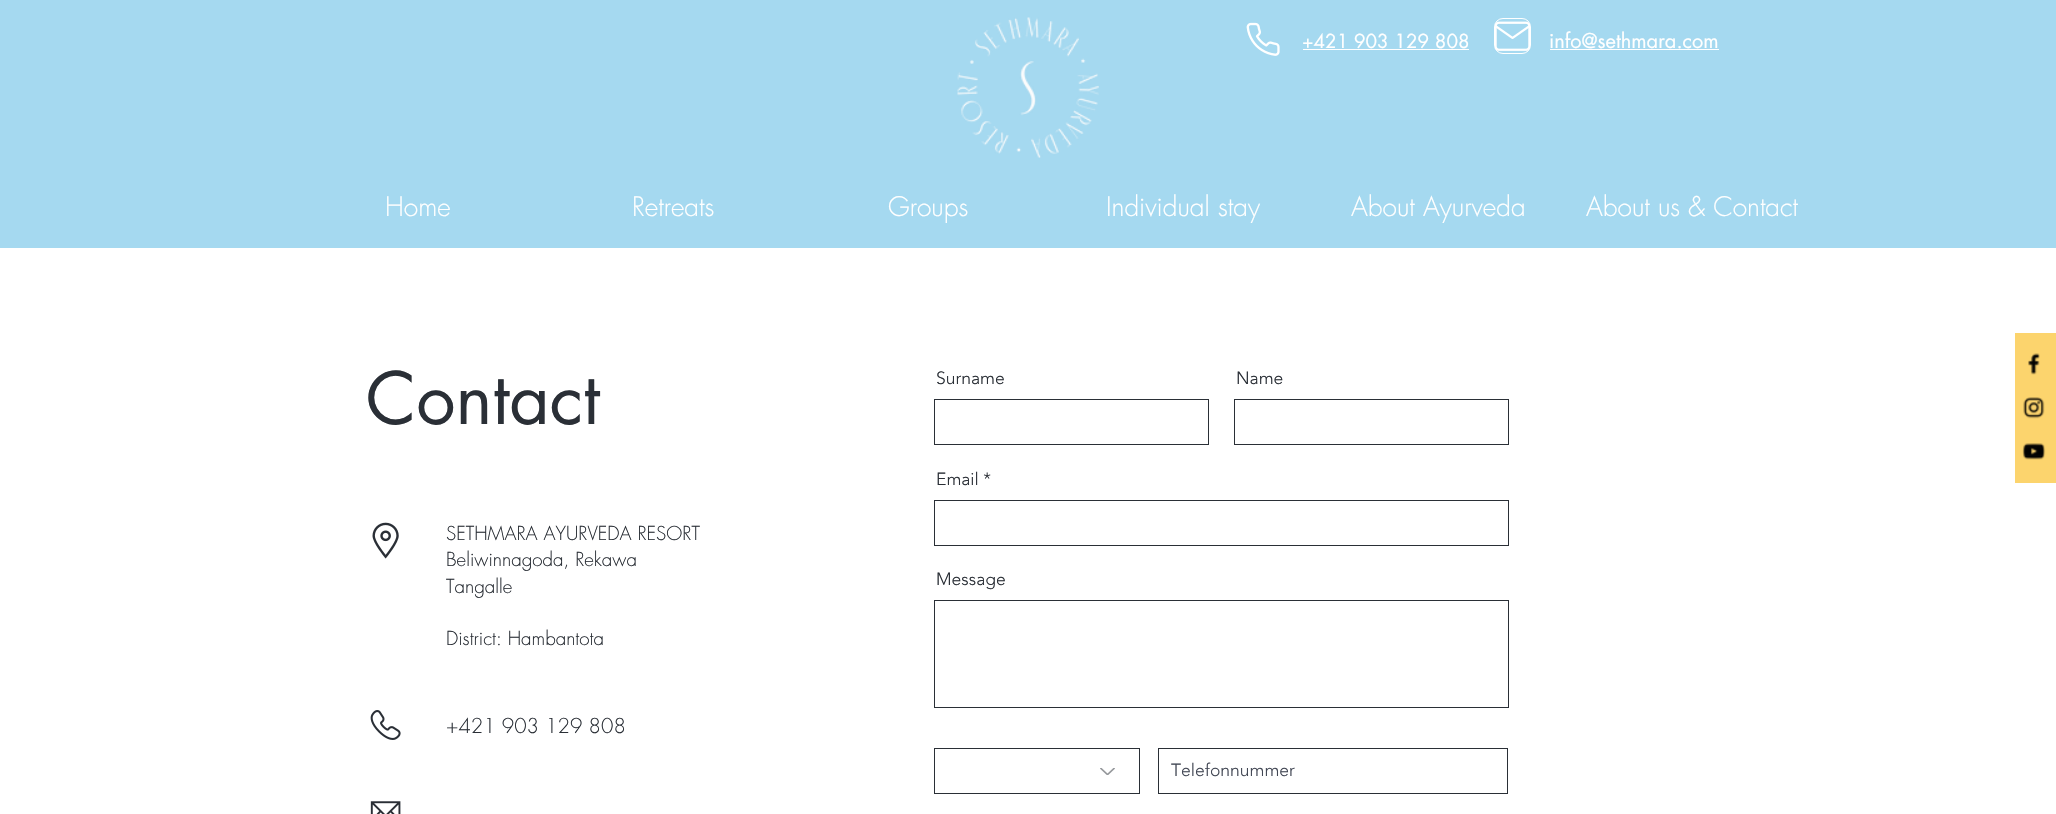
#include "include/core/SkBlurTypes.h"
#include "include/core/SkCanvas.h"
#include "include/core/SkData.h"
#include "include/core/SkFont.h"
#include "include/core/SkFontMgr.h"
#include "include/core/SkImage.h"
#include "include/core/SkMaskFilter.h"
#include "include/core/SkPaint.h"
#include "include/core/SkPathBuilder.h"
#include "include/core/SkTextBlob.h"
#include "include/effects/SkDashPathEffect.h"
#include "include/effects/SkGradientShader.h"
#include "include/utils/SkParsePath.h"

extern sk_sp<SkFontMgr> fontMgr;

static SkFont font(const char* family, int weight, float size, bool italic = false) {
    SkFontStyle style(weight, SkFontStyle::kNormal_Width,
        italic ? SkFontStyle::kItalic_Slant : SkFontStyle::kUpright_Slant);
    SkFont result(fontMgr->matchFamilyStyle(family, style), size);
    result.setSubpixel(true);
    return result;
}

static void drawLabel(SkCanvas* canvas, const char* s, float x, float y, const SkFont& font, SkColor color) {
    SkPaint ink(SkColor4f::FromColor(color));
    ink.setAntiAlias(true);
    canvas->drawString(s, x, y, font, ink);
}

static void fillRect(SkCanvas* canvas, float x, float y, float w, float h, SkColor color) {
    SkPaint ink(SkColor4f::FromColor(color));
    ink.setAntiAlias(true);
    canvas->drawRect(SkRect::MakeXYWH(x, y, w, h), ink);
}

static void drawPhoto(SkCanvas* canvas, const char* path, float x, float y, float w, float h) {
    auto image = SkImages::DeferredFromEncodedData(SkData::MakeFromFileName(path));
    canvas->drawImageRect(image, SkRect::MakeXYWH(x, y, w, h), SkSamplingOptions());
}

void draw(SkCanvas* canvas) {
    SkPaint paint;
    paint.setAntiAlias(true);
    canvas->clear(0xFFFFFFFF);
    fillRect(canvas, 0, 0, 2056, 248, 0xFFA5D9F0);
    drawPhoto(canvas, "assets/img1.png", 957, 17, 142, 141);
    drawPhoto(canvas, "assets/img2.png", 1246, 22, 34, 34);
    SkFont font1 = font("futura", 400, 18.75f);
    drawLabel(canvas, "+421 903 129 808", 1302, 48, font1, 0xFFFFFFFF);
    fillRect(canvas, 1303, 49, 166, 1, 0xFFFFFFFF);
    paint.setStroke(true);
    paint.setStrokeWidth(1);
    paint.setColor(0xFFFFFFFF);
    canvas->drawRoundRect(SkRect::MakeXYWH(1494.5f, 18.5f, 36, 35), 8.5f, 8.5f, paint);
    drawPhoto(canvas, "assets/img3.png", 1495, 21, 35, 30);
    SkFont font2 = font("futura", 400, 20);
    drawLabel(canvas, "info@sethmara.com", 1549, 48, font2, 0xFFFFFFFF);
    fillRect(canvas, 1550, 49, 169, 1, 0xFFFFFFFF);
    SkFont font3 = font("futura", 300, 26.25f);
    drawLabel(canvas, "Home", 385, 216, font3, 0xFFFFFFFF);
    drawLabel(canvas, "Retreats", 632, 216, font3, 0xFFFFFFFF);
    drawLabel(canvas, "Groups", 888, 216, font3, 0xFFFFFFFF);
    drawLabel(canvas, "Individual stay", 1106, 216, font3, 0xFFFFFFFF);
    drawLabel(canvas, "About Ayurveda", 1351, 216, font3, 0xFFFFFFFF);
    drawLabel(canvas, "About us & Contact", 1586, 216, font3, 0xFFFFFFFF);
    SkFont font4 = font("futura", 400, 70);
    drawLabel(canvas, "Contact", 366, 424, font4, 0xFF2A2F36);
    drawPhoto(canvas, "assets/img4.png", 372, 522, 27, 37);
    SkFont font5 = font("futura", 300, 18.75f);
    drawLabel(canvas, "SETHMARA AYURVEDA RESORT", 446, 540, font5, 0xFF2A2F36);
    drawLabel(canvas, "Beliwinnagoda, Rekawa", 446, 566, font5, 0xFF2A2F36);
    drawLabel(canvas, "Tangalle", 446, 593, font5, 0xFF2A2F36);
    drawLabel(canvas, "District: Hambantota", 446, 645, font5, 0xFF2A2F36);
    drawPhoto(canvas, "assets/img5.png", 370, 710, 31, 30);
    SkFont font6 = font("futura", 300, 20);
    drawLabel(canvas, "+421 903 129 808", 446, 733, font6, 0xFF2A2F36);
    drawPhoto(canvas, "assets/img6.png", 370, 801, 31, 13);
    SkFont font7 = font("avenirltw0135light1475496", 300, 17.5f);
    drawLabel(canvas, "Surname", 936, 384, font7, 0xFF2A2F36);
    paint.setColor(0xFF2A2F36);
    canvas->drawRect(SkRect::MakeXYWH(934.5f, 399.5f, 274, 45), paint);
    drawLabel(canvas, "Name", 1236, 384, font7, 0xFF2A2F36);
    canvas->drawRect(SkRect::MakeXYWH(1234.5f, 399.5f, 274, 45), paint);
    drawLabel(canvas, "Email *", 936, 485, font7, 0xFF2A2F36);
    canvas->drawRect(SkRect::MakeXYWH(934.5f, 500.5f, 574, 45), paint);
    drawLabel(canvas, "Message", 936, 585, font7, 0xFF2A2F36);
    canvas->drawRect(SkRect::MakeXYWH(934.5f, 600.5f, 574, 107), paint);
    canvas->drawRect(SkRect::MakeXYWH(934.5f, 748.5f, 205, 45), paint);
    drawPhoto(canvas, "assets/img7.png", 1100, 768, 15, 7);
    canvas->drawRect(SkRect::MakeXYWH(1158.5f, 748.5f, 349, 45), paint);
    drawLabel(canvas, "Telefonnummer", 1171, 776, font7, 0xFF424754);
    fillRect(canvas, 2015, 333, 41, 150, 0xFFFCD46D);
    drawPhoto(canvas, "assets/img8.png", 2028, 353, 12, 22);
    drawPhoto(canvas, "assets/img9.png", 2023, 397, 22, 22);
    drawPhoto(canvas, "assets/img10.png", 2022, 443, 24, 17);
}
